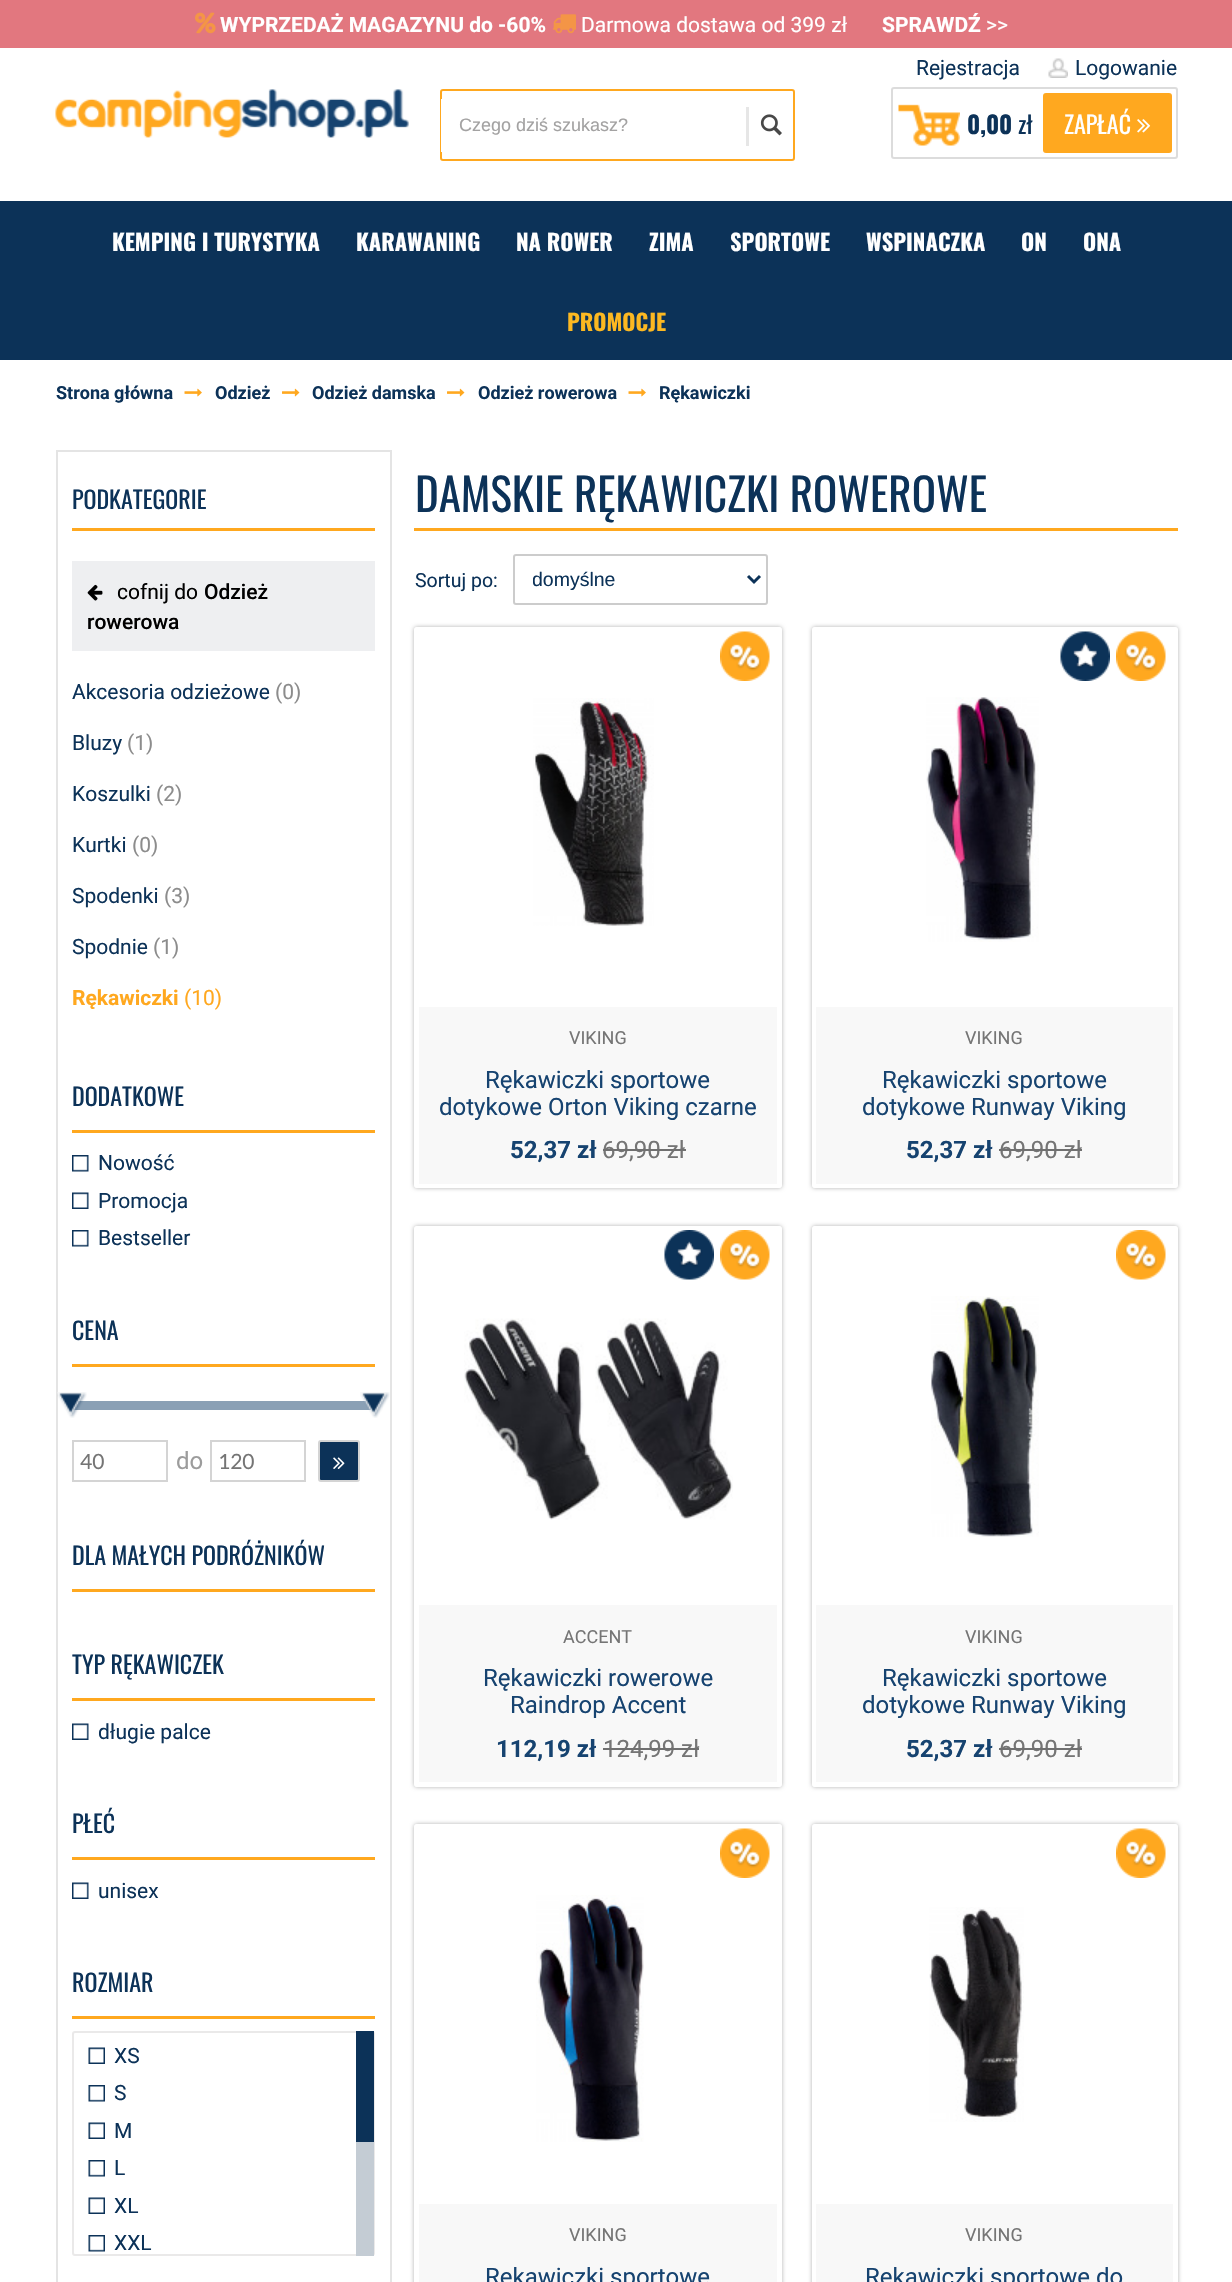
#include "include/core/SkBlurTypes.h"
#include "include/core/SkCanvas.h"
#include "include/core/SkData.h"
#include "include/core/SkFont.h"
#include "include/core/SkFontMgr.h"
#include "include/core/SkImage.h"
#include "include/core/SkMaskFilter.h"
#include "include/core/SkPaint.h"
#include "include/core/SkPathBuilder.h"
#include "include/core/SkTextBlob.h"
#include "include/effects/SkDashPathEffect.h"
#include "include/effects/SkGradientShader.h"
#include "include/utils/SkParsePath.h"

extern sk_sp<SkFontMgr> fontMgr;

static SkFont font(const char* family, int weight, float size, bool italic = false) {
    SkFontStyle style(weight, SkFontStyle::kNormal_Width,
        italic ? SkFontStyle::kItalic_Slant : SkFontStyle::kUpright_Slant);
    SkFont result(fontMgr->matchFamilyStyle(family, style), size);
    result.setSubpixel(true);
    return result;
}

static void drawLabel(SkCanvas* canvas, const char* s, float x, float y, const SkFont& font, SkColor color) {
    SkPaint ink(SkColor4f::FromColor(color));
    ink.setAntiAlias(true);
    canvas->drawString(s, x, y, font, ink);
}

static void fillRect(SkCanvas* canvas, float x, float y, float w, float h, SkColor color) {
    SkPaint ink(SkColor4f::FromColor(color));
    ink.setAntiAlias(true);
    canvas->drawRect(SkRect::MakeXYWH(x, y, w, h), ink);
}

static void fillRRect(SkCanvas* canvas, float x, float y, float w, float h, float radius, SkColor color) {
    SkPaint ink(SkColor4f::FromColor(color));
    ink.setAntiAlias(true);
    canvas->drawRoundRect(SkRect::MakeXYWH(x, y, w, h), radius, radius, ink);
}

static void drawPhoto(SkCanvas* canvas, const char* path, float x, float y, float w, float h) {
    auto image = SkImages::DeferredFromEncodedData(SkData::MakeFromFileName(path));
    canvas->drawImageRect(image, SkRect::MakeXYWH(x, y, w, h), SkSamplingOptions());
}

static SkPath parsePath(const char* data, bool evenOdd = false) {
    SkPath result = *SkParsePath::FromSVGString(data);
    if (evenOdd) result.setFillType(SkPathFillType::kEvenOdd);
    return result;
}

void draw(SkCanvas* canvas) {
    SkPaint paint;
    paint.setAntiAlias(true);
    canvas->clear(0xFFFFFFFF);
    fillRect(canvas, 0, 0, 1232, 48, 0xFFE2777F);
    drawPhoto(canvas, "assets/img1.png", 195, 12, 21, 22);
    SkFont font1 = font("Roboto", 700, 21);
    drawLabel(canvas, "WYPRZEDAŻ MAGAZYNU do -60%", 220, 32, font1, 0xFFFFFFFF);
    drawPhoto(canvas, "assets/img2.png", 553, 14, 23, 20);
    SkFont font2 = font("Roboto", 400, 21);
    drawLabel(canvas, "Darmowa dostawa od 399 zł", 581, 32, font2, 0xFFFFFFFF);
    drawLabel(canvas, "SPRAWDŹ", 882, 32, font1, 0xFFFFFFFF);
    drawLabel(canvas, ">>", 986, 32, font2, 0xFFFFFFFF);
    drawLabel(canvas, "Rejestracja", 916, 75, font2, 0xFF0C3258);
    drawPhoto(canvas, "assets/img3.png", 1048, 58, 20, 20);
    drawLabel(canvas, "Logowanie", 1075, 75, font2, 0xFF0C3258);
    drawPhoto(canvas, "assets/img4.png", 55, 89, 354, 49);
    paint.setStroke(true);
    paint.setStrokeWidth(2);
    paint.setColor(0xFFFFA81F);
    canvas->drawRoundRect(SkRect::MakeXYWH(441, 90, 353, 70), 2, 2, paint);
    fillRect(canvas, 441, 99, 1, 53, 0xFFFFFFFF);
    SkFont font3 = font("Liberation Sans", 400, 18);
    drawLabel(canvas, "Czego dziś szukasz?", 459, 131, font3, 0xFFA3A2A2);
    fillRect(canvas, 746, 107, 3, 39, 0xFFE6E6E6);
    drawPhoto(canvas, "assets/img5.png", 760, 114, 22, 22);
    drawPhoto(canvas, "assets/img6.png", 898, 104, 62, 42);
    paint.setColor(0xFFDCDCDC);
    canvas->drawRoundRect(SkRect::MakeXYWH(892, 88, 285, 70), 2, 2, paint);
    SkFont font4 = font("Oswald", 700, 24);
    drawLabel(canvas, "0,00", 967, 134, font4, 0xFF0C3258);
    SkFont font5 = font("Oswald", 400, 24);
    drawLabel(canvas, "zł", 1018, 134, font5, 0xFF0C3258);
    fillRRect(canvas, 1043, 93, 129, 60, 3, 0xFFFFA81F);
    drawLabel(canvas, "ZAPŁAĆ", 1064, 134, font5, 0xFFFFFFFF);
    drawPhoto(canvas, "assets/img7.png", 1137, 119, 14, 14);
    fillRect(canvas, 0, 201, 1232, 159, 0xFF0C3258);
    SkFont font6 = font("Oswald", 700, 22.5f);
    drawLabel(canvas, "KEMPING I TURYSTYKA", 112, 251, font6, 0xFFFFFFFF);
    drawLabel(canvas, "KARAWANING", 356, 251, font6, 0xFFFFFFFF);
    drawLabel(canvas, "NA ROWER", 516, 251, font6, 0xFFFFFFFF);
    drawLabel(canvas, "ZIMA", 649, 251, font6, 0xFFFFFFFF);
    drawLabel(canvas, "SPORTOWE", 730, 251, font6, 0xFFFFFFFF);
    drawLabel(canvas, "WSPINACZKA", 866, 251, font6, 0xFFFFFFFF);
    drawLabel(canvas, "ON", 1021, 251, font6, 0xFFFFFFFF);
    drawLabel(canvas, "ONA", 1083, 251, font6, 0xFFFFFFFF);
    drawLabel(canvas, "PROMOCJE", 567, 331, font6, 0xFFFCB821);
    SkFont font7 = font("Roboto", 700, 18);
    drawLabel(canvas, "Strona główna", 56, 399, font7, 0xFF0C3258);
    drawPhoto(canvas, "assets/img8.png", 184, 388, 18, 9);
    drawLabel(canvas, "Odzież", 215, 399, font7, 0xFF0C3258);
    drawPhoto(canvas, "assets/img9.png", 282, 388, 18, 9);
    drawLabel(canvas, "Odzież damska", 312, 399, font7, 0xFF0C3258);
    drawPhoto(canvas, "assets/img9.png", 447, 388, 18, 9);
    drawLabel(canvas, "Odzież rowerowa", 478, 399, font7, 0xFF0C3258);
    drawPhoto(canvas, "assets/img8.png", 628, 388, 18, 9);
    drawLabel(canvas, "Rękawiczki", 659, 399, font7, 0xFF0C3258);
    paint.setColor(0xFFE4E4E4);
    canvas->drawRect(SkRect::MakeXYWH(57, 451, 334, 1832), paint);
    fillRect(canvas, 72, 528, 303, 3, 0xFFFFA81F);
    drawLabel(canvas, "PODKATEGORIE", 72, 509, font5, 0xFF0C3258);
    fillRect(canvas, 72, 561, 303, 90, 0xFFEEEFF1);
    drawPhoto(canvas, "assets/img10.png", 87, 584, 16, 17);
    drawLabel(canvas, "cofnij do", 117, 599, font2, 0xFF000000);
    SkFont font8 = font("Roboto", 500, 21);
    drawLabel(canvas, "Odzież", 204, 599, font8, 0xFF000000);
    drawLabel(canvas, "rowerowa", 87, 629, font8, 0xFF000000);
    drawLabel(canvas, "Akcesoria odzieżowe", 72, 699, font2, 0xFF0C3258);
    drawLabel(canvas, "(0)", 275, 699, font2, 0xFF8C8C8C);
    drawLabel(canvas, "Bluzy", 72, 750, font2, 0xFF0C3258);
    drawLabel(canvas, "(1)", 127, 750, font2, 0xFF8C8C8C);
    drawLabel(canvas, "Koszulki", 72, 801, font2, 0xFF0C3258);
    drawLabel(canvas, "(2)", 156, 801, font2, 0xFF8C8C8C);
    drawLabel(canvas, "Kurtki", 72, 852, font2, 0xFF0C3258);
    drawLabel(canvas, "(0)", 132, 852, font2, 0xFF8C8C8C);
    drawLabel(canvas, "Spodenki", 72, 903, font2, 0xFF0C3258);
    drawLabel(canvas, "(3)", 164, 903, font2, 0xFF8C8C8C);
    drawLabel(canvas, "Spodnie", 72, 954, font2, 0xFF0C3258);
    drawLabel(canvas, "(1)", 153, 954, font2, 0xFF8C8C8C);
    drawLabel(canvas, "Rękawiczki", 72, 1005, font1, 0xFFFFA81F);
    drawLabel(canvas, "(10)", 184, 1005, font2, 0xFFFFA81F);
    fillRect(canvas, 72, 1130, 303, 3, 0xFFFFA81F);
    drawLabel(canvas, "DODATKOWE", 72, 1106, font5, 0xFF0C3258);
    drawPhoto(canvas, "assets/img11.png", 72, 1155, 17, 17);
    drawLabel(canvas, "Nowość", 98, 1170, font2, 0xFF0C3258);
    drawPhoto(canvas, "assets/img12.png", 72, 1192, 17, 17);
    drawLabel(canvas, "Promocja", 98, 1208, font2, 0xFF0C3258);
    drawPhoto(canvas, "assets/img11.png", 72, 1230, 17, 17);
    drawLabel(canvas, "Bestseller", 98, 1245, font2, 0xFF0C3258);
    fillRect(canvas, 72, 1364, 303, 3, 0xFFFFA81F);
    drawLabel(canvas, "CENA", 72, 1340, font5, 0xFF0C3258);
    fillRRect(canvas, 72, 1401, 303, 9, 3, 0xFF8AA0B5);
    drawPhoto(canvas, "assets/img13.png", 57, 1392, 30, 26);
    drawPhoto(canvas, "assets/img14.png", 360, 1392, 30, 26);
    paint.setColor(0xFFD4D4D4);
    canvas->drawRect(SkRect::MakeXYWH(73, 1441, 94, 40), paint);
    SkFont font9 = font("Lato", 400, 21);
    drawLabel(canvas, "40", 80, 1469, font9, 0xFF757575);
    SkFont font10 = font("Roboto", 400, 24);
    drawLabel(canvas, "do", 176, 1469, font10, 0xFF9C9C9C);
    canvas->drawRect(SkRect::MakeXYWH(211, 1441, 94, 40), paint);
    drawLabel(canvas, "120", 218, 1469, font9, 0xFF757575);
    paint.setStroke(false);
    paint.setColor(0xFF0C3258);
    canvas->drawRoundRect(SkRect::MakeXYWH(319, 1441, 40, 40), 2, 2, paint);
    paint.setStroke(true);
    paint.setColor(0xFFD4D4D4);
    canvas->drawRoundRect(SkRect::MakeXYWH(319, 1441, 40, 40), 2, 2, paint);
    drawPhoto(canvas, "assets/img15.png", 333, 1457, 12, 12);
    fillRect(canvas, 72, 1589, 303, 3, 0xFFFFA81F);
    drawLabel(canvas, "DLA MAŁYCH PODRÓŻNIKÓW", 72, 1565, font5, 0xFF0C3258);
    fillRect(canvas, 72, 1698, 303, 3, 0xFFFFA81F);
    drawLabel(canvas, "TYP RĘKAWICZEK", 72, 1674, font5, 0xFF0C3258);
    drawPhoto(canvas, "assets/img12.png", 72, 1723, 17, 17);
    drawLabel(canvas, "długie palce", 98, 1739, font2, 0xFF0C3258);
    fillRect(canvas, 72, 1857, 303, 3, 0xFFFFA81F);
    drawLabel(canvas, "PŁEĆ", 72, 1833, font5, 0xFF0C3258);
    drawPhoto(canvas, "assets/img12.png", 72, 1882, 17, 17);
    drawLabel(canvas, "unisex", 98, 1898, font2, 0xFF0C3258);
    fillRect(canvas, 72, 2016, 303, 3, 0xFFFFA81F);
    drawLabel(canvas, "ROZMIAR", 72, 1992, font5, 0xFF0C3258);
    paint.setColor(0xFFEAE9E9);
    canvas->drawRoundRect(SkRect::MakeXYWH(73, 2032, 301, 223), 2, 2, paint);
    drawPhoto(canvas, "assets/img16.png", 88, 2047, 17, 17);
    drawLabel(canvas, "XS", 114, 2063, font2, 0xFF0C3258);
    drawPhoto(canvas, "assets/img17.png", 88, 2085, 17, 17);
    drawLabel(canvas, "S", 114, 2100, font2, 0xFF0C3258);
    drawPhoto(canvas, "assets/img16.png", 88, 2122, 17, 17);
    drawLabel(canvas, "M", 114, 2138, font2, 0xFF0C3258);
    drawPhoto(canvas, "assets/img17.png", 88, 2160, 17, 17);
    drawLabel(canvas, "L", 114, 2175, font2, 0xFF0C3258);
    drawPhoto(canvas, "assets/img16.png", 88, 2197, 17, 17);
    drawLabel(canvas, "XL", 114, 2213, font2, 0xFF0C3258);
    drawPhoto(canvas, "assets/img17.png", 88, 2235, 17, 17);
    drawLabel(canvas, "XXL", 114, 2250, font2, 0xFF0C3258);
    fillRect(canvas, 356, 2031, 18, 111, 0xFF0C3258);
    fillRect(canvas, 356, 2142, 18, 114, 0xFFC4CCD4);
    fillRect(canvas, 414, 528, 764, 3, 0xFFFFA81F);
    SkFont font11 = font("Oswald", 400, 45);
    drawLabel(canvas, "DAMSKIE RĘKAWICZKI ROWEROWE", 415, 512, font11, 0xFF0C3258);
    SkFont font12 = font("Roboto", 400, 19.5f);
    drawLabel(canvas, "Sortuj po:", 415, 587, font12, 0xFF0C3258);
    paint.setColor(0xFFCCCCCC);
    canvas->drawRoundRect(SkRect::MakeXYWH(514, 555, 253, 49), 2, 2, paint);
    paint.setStrokeWidth(3);
    paint.setColor(0xFF0C3258);
    canvas->drawPath(parsePath("M748 576L754 582L760 576"), paint);
    canvas->save();
    canvas->clipRect(SkRect::MakeXYWH(533, 567, 198, 26));
    SkFont font13 = font("Liberation Sans", 400, 19.5f);
    drawLabel(canvas, "domyślne", 532, 586, font13, 0xFF0C3258);
    canvas->restore();
    canvas->save();
    canvas->clipPath(parsePath("M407 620H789V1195H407ZM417 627H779C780.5 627 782 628.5 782 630V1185C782 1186.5 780.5 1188 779 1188H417C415.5 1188 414 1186.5 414 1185V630C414 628.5 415.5 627 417 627Z", true), true);
    paint.setStroke(false);
    paint.setColor(0x4D000000);
    paint.setMaskFilter(SkMaskFilter::MakeBlur(kNormal_SkBlurStyle, 2));
    canvas->drawRoundRect(SkRect::MakeXYWH(414, 627, 368, 561), 3, 3, paint);
    paint.setMaskFilter(nullptr);
    canvas->restore();
    paint.setStroke(true);
    paint.setStrokeWidth(5);
    paint.setColor(0xFFFFFFFF);
    canvas->drawRoundRect(SkRect::MakeXYWH(416.5f, 629.5f, 363, 556), 0.5f, 0.5f, paint);
    drawPhoto(canvas, "assets/img18.png", 720, 631, 50, 50);
    drawPhoto(canvas, "assets/img19.png", 533, 698, 121, 228);
    fillRect(canvas, 419, 1007, 358, 177, 0xFFF8F8F8);
    SkFont font14 = font("Roboto", 400, 18);
    drawLabel(canvas, "VIKING", 569, 1044, font14, 0xFF757575);
    drawLabel(canvas, "Rękawiczki sportowe", 485, 1088, font10, 0xFF164370);
    drawLabel(canvas, "dotykowe Orton Viking czarne", 439, 1115, font10, 0xFF164370);
    SkFont font15 = font("Roboto", 700, 24);
    drawLabel(canvas, "52,37 zł", 510, 1158, font15, 0xFF164370);
    drawLabel(canvas, "69,90 zł", 602, 1158, font10, 0xFF757575);
    fillRect(canvas, 603, 1149, 83, 2, 0xFF707070);
    canvas->save();
    canvas->clipPath(parsePath("M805 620H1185V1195H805ZM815 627H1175C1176.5 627 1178 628.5 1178 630V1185C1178 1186.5 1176.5 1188 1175 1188H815C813.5 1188 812 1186.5 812 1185V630C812 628.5 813.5 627 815 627Z", true), true);
    paint.setStroke(false);
    paint.setColor(0x4D000000);
    paint.setMaskFilter(SkMaskFilter::MakeBlur(kNormal_SkBlurStyle, 2));
    canvas->drawRoundRect(SkRect::MakeXYWH(812, 627, 366, 561), 3, 3, paint);
    paint.setMaskFilter(nullptr);
    canvas->restore();
    paint.setStroke(true);
    paint.setColor(0xFFFFFFFF);
    canvas->drawRoundRect(SkRect::MakeXYWH(814.5f, 629.5f, 361, 556), 0.5f, 0.5f, paint);
    drawPhoto(canvas, "assets/img20.png", 1060, 631, 50, 50);
    drawPhoto(canvas, "assets/img21.png", 1116, 631, 50, 50);
    drawPhoto(canvas, "assets/img22.png", 926, 697, 113, 245);
    fillRect(canvas, 816, 1007, 357, 177, 0xFFF8F8F8);
    drawLabel(canvas, "VIKING", 965, 1044, font14, 0xFF757575);
    drawLabel(canvas, "Rękawiczki sportowe", 882, 1088, font10, 0xFF164370);
    drawLabel(canvas, "dotykowe Runway Viking", 862, 1115, font10, 0xFF164370);
    drawLabel(canvas, "52,37 zł", 906, 1158, font15, 0xFF164370);
    drawLabel(canvas, "69,90 zł", 999, 1158, font10, 0xFF757575);
    fillRect(canvas, 999, 1149, 83, 2, 0xFF707070);
    canvas->save();
    canvas->clipPath(parsePath("M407 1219H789V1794H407ZM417 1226H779C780.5 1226 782 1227.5 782 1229V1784C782 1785.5 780.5 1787 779 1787H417C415.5 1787 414 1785.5 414 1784V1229C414 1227.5 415.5 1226 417 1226Z", true), true);
    paint.setStroke(false);
    paint.setColor(0x4D000000);
    paint.setMaskFilter(SkMaskFilter::MakeBlur(kNormal_SkBlurStyle, 2));
    canvas->drawRoundRect(SkRect::MakeXYWH(414, 1226, 368, 561), 3, 3, paint);
    paint.setMaskFilter(nullptr);
    canvas->restore();
    paint.setStroke(true);
    paint.setColor(0xFFFFFFFF);
    canvas->drawRoundRect(SkRect::MakeXYWH(416.5f, 1228.5f, 363, 556), 0.5f, 0.5f, paint);
    drawPhoto(canvas, "assets/img23.png", 664, 1230, 50, 50);
    drawPhoto(canvas, "assets/img24.png", 720, 1230, 50, 50);
    drawPhoto(canvas, "assets/img25.png", 464, 1318, 269, 202);
    fillRect(canvas, 419, 1605, 358, 177, 0xFFF8F8F8);
    drawLabel(canvas, "ACCENT", 563, 1643, font14, 0xFF757575);
    drawLabel(canvas, "Rękawiczki rowerowe", 483, 1686, font10, 0xFF164370);
    drawLabel(canvas, "Raindrop Accent", 510, 1713, font10, 0xFF164370);
    drawLabel(canvas, "112,19 zł", 496, 1757, font15, 0xFF164370);
    drawLabel(canvas, "124,99 zł", 603, 1757, font10, 0xFF757575);
    fillRect(canvas, 603, 1748, 96, 2, 0xFF707070);
    canvas->save();
    canvas->clipPath(parsePath("M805 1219H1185V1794H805ZM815 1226H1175C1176.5 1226 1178 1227.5 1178 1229V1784C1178 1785.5 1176.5 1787 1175 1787H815C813.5 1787 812 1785.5 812 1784V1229C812 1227.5 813.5 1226 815 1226Z", true), true);
    paint.setStroke(false);
    paint.setColor(0x4D000000);
    paint.setMaskFilter(SkMaskFilter::MakeBlur(kNormal_SkBlurStyle, 2));
    canvas->drawRoundRect(SkRect::MakeXYWH(812, 1226, 366, 561), 3, 3, paint);
    paint.setMaskFilter(nullptr);
    canvas->restore();
    paint.setStroke(true);
    paint.setColor(0xFFFFFFFF);
    canvas->drawRoundRect(SkRect::MakeXYWH(814.5f, 1228.5f, 361, 556), 0.5f, 0.5f, paint);
    drawPhoto(canvas, "assets/img26.png", 1116, 1230, 50, 50);
    drawPhoto(canvas, "assets/img27.png", 931, 1296, 108, 241);
    fillRect(canvas, 816, 1605, 357, 177, 0xFFF8F8F8);
    drawLabel(canvas, "VIKING", 965, 1643, font14, 0xFF757575);
    drawLabel(canvas, "Rękawiczki sportowe", 882, 1686, font10, 0xFF164370);
    drawLabel(canvas, "dotykowe Runway Viking", 862, 1713, font10, 0xFF164370);
    drawLabel(canvas, "52,37 zł", 906, 1757, font15, 0xFF164370);
    drawLabel(canvas, "69,90 zł", 999, 1757, font10, 0xFF757575);
    fillRect(canvas, 999, 1748, 83, 2, 0xFF707070);
    canvas->save();
    canvas->clipPath(parsePath("M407 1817H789V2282H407ZM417 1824H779C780.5 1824 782 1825.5 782 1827V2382C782 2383.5 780.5 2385 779 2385H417C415.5 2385 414 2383.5 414 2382V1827C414 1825.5 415.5 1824 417 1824Z", true), true);
    paint.setStroke(false);
    paint.setColor(0x4D000000);
    paint.setMaskFilter(SkMaskFilter::MakeBlur(kNormal_SkBlurStyle, 2));
    canvas->drawRoundRect(SkRect::MakeXYWH(414, 1824, 368, 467), 3, 3, paint);
    paint.setMaskFilter(nullptr);
    canvas->restore();
    paint.setStroke(true);
    paint.setColor(0xFFFFFFFF);
    canvas->drawRoundRect(SkRect::MakeXYWH(416.5f, 1826.5f, 363, 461), 0.5f, 0.5f, paint);
    drawPhoto(canvas, "assets/img18.png", 720, 1828, 50, 50);
    drawPhoto(canvas, "assets/img28.png", 536, 1895, 108, 247);
    fillRect(canvas, 419, 2204, 358, 78, 0xFFF8F8F8);
    drawLabel(canvas, "VIKING", 569, 2241, font14, 0xFF757575);
    drawLabel(canvas, "Rękawiczki sportowe", 485, 2285, font10, 0xFF164370);
    canvas->save();
    canvas->clipPath(parsePath("M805 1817H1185V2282H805ZM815 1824H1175C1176.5 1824 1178 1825.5 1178 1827V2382C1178 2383.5 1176.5 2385 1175 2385H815C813.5 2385 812 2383.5 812 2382V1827C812 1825.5 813.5 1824 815 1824Z", true), true);
    paint.setStroke(false);
    paint.setColor(0x4D000000);
    paint.setMaskFilter(SkMaskFilter::MakeBlur(kNormal_SkBlurStyle, 2));
    canvas->drawRoundRect(SkRect::MakeXYWH(812, 1824, 366, 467), 3, 3, paint);
    paint.setMaskFilter(nullptr);
    canvas->restore();
    paint.setStroke(true);
    paint.setColor(0xFFFFFFFF);
    canvas->drawRoundRect(SkRect::MakeXYWH(814.5f, 1826.5f, 361, 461), 0.5f, 0.5f, paint);
    drawPhoto(canvas, "assets/img21.png", 1116, 1828, 50, 50);
    drawPhoto(canvas, "assets/img29.png", 929, 1907, 95, 215);
    fillRect(canvas, 816, 2204, 357, 78, 0xFFF8F8F8);
    drawLabel(canvas, "VIKING", 965, 2241, font14, 0xFF757575);
    drawLabel(canvas, "Rękawiczki sportowe do", 865, 2285, font10, 0xFF164370);
}
